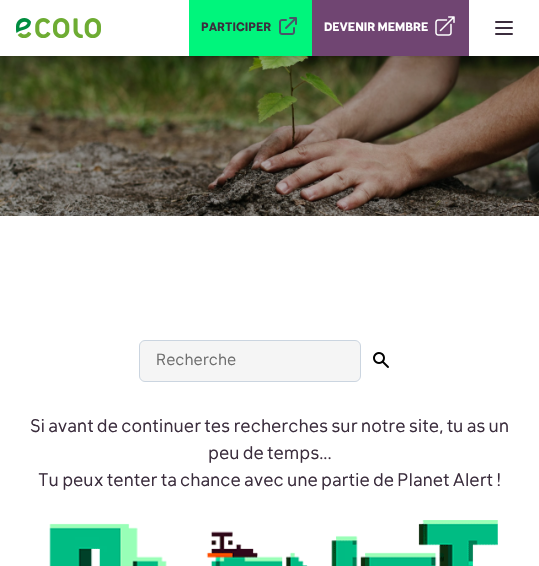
#include "include/core/SkBlurTypes.h"
#include "include/core/SkCanvas.h"
#include "include/core/SkData.h"
#include "include/core/SkFont.h"
#include "include/core/SkFontMgr.h"
#include "include/core/SkImage.h"
#include "include/core/SkMaskFilter.h"
#include "include/core/SkPaint.h"
#include "include/core/SkPathBuilder.h"
#include "include/core/SkTextBlob.h"
#include "include/effects/SkDashPathEffect.h"
#include "include/effects/SkGradientShader.h"
#include "include/utils/SkParsePath.h"

extern sk_sp<SkFontMgr> fontMgr;

static SkFont font(const char* family, int weight, float size, bool italic = false) {
    SkFontStyle style(weight, SkFontStyle::kNormal_Width,
        italic ? SkFontStyle::kItalic_Slant : SkFontStyle::kUpright_Slant);
    SkFont result(fontMgr->matchFamilyStyle(family, style), size);
    result.setSubpixel(true);
    return result;
}

static void drawLabel(SkCanvas* canvas, const char* s, float x, float y, const SkFont& font, SkColor color) {
    SkPaint ink(SkColor4f::FromColor(color));
    ink.setAntiAlias(true);
    canvas->drawString(s, x, y, font, ink);
}

static void fillRect(SkCanvas* canvas, float x, float y, float w, float h, SkColor color) {
    SkPaint ink(SkColor4f::FromColor(color));
    ink.setAntiAlias(true);
    canvas->drawRect(SkRect::MakeXYWH(x, y, w, h), ink);
}

static void drawPhoto(SkCanvas* canvas, const char* path, float x, float y, float w, float h) {
    auto image = SkImages::DeferredFromEncodedData(SkData::MakeFromFileName(path));
    canvas->drawImageRect(image, SkRect::MakeXYWH(x, y, w, h), SkSamplingOptions());
}

static SkPath parsePath(const char* data, bool evenOdd = false) {
    SkPath result = *SkParsePath::FromSVGString(data);
    if (evenOdd) result.setFillType(SkPathFillType::kEvenOdd);
    return result;
}

void draw(SkCanvas* canvas) {
    SkPaint paint;
    paint.setAntiAlias(true);
    canvas->clear(0xFFFFFFFF);
    drawPhoto(canvas, "assets/img4.png", 0, 56, 539, 160);
    canvas->save();
    canvas->clipRect(SkRect::MakeXYWH(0, 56, 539, 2));
    paint.setColor(0x1A000000);
    paint.setMaskFilter(SkMaskFilter::MakeBlur(kNormal_SkBlurStyle, 1.5f));
    canvas->drawRect(SkRect::MakeXYWH(0, 1, 539, 56), paint);
    paint.setMaskFilter(nullptr);
    canvas->restore();
    drawPhoto(canvas, "assets/img1.png", 16, 18, 85, 20);
    fillRect(canvas, 189, 0, 123, 56, 0xFF00F57C);
    SkFont font1 = font("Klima", 700, 12);
    drawLabel(canvas, "PARTICIPER", 201, 31, font1, 0xFF3B2D3D);
    drawPhoto(canvas, "assets/img2.png", 279, 17, 18, 18);
    fillRect(canvas, 312, 0, 157, 56, 0xFF704572);
    drawLabel(canvas, "DEVENIR MEMBRE", 324, 31, font1, 0xFFFFFFFF);
    drawPhoto(canvas, "assets/img3.png", 435, 16, 20, 20);
    paint.setStroke(true);
    paint.setStrokeWidth(2);
    paint.setStrokeCap(SkPaint::kRound_Cap);
    paint.setStrokeJoin(SkPaint::kRound_Join);
    paint.setColor(0xFF3B2D3D);
    canvas->drawPath(parsePath("M496 22H512M496 28H512M496 34H512"), paint);
    paint.setStroke(false);
    paint.setColor(0xFFF5F5F5);
    canvas->drawRoundRect(SkRect::MakeXYWH(139.5f, 340.5f, 221, 41), 5.5f, 5.5f, paint);
    paint.setStroke(true);
    paint.setStrokeWidth(1);
    paint.setStrokeCap(SkPaint::kButt_Cap);
    paint.setStrokeJoin(SkPaint::kMiter_Join);
    paint.setColor(0xFFCBD5E0);
    canvas->drawRoundRect(SkRect::MakeXYWH(139.5f, 340.5f, 221, 41), 5.5f, 5.5f, paint);
    SkFont font2 = font("Klima", 400, 16);
    drawLabel(canvas, "Recherche", 156, 365, font2, 0xFF6F6F6F);
    drawPhoto(canvas, "assets/img5.png", 373, 352, 16, 16);
    SkFont font3 = font("Klima", 400, 18);
    drawLabel(canvas, "Si avant de continuer tes recherches sur notre site, tu as un", 30, 432, font3, 0xFF3B2D3D);
    drawLabel(canvas, "peu de temps...", 208, 459, font3, 0xFF3B2D3D);
    drawLabel(canvas, "Tu peux tenter ta chance avec une partie de Planet Alert !", 38, 486, font3, 0xFF3B2D3D);
    drawPhoto(canvas, "assets/img6.png", 49, 520, 449, 46);
}
